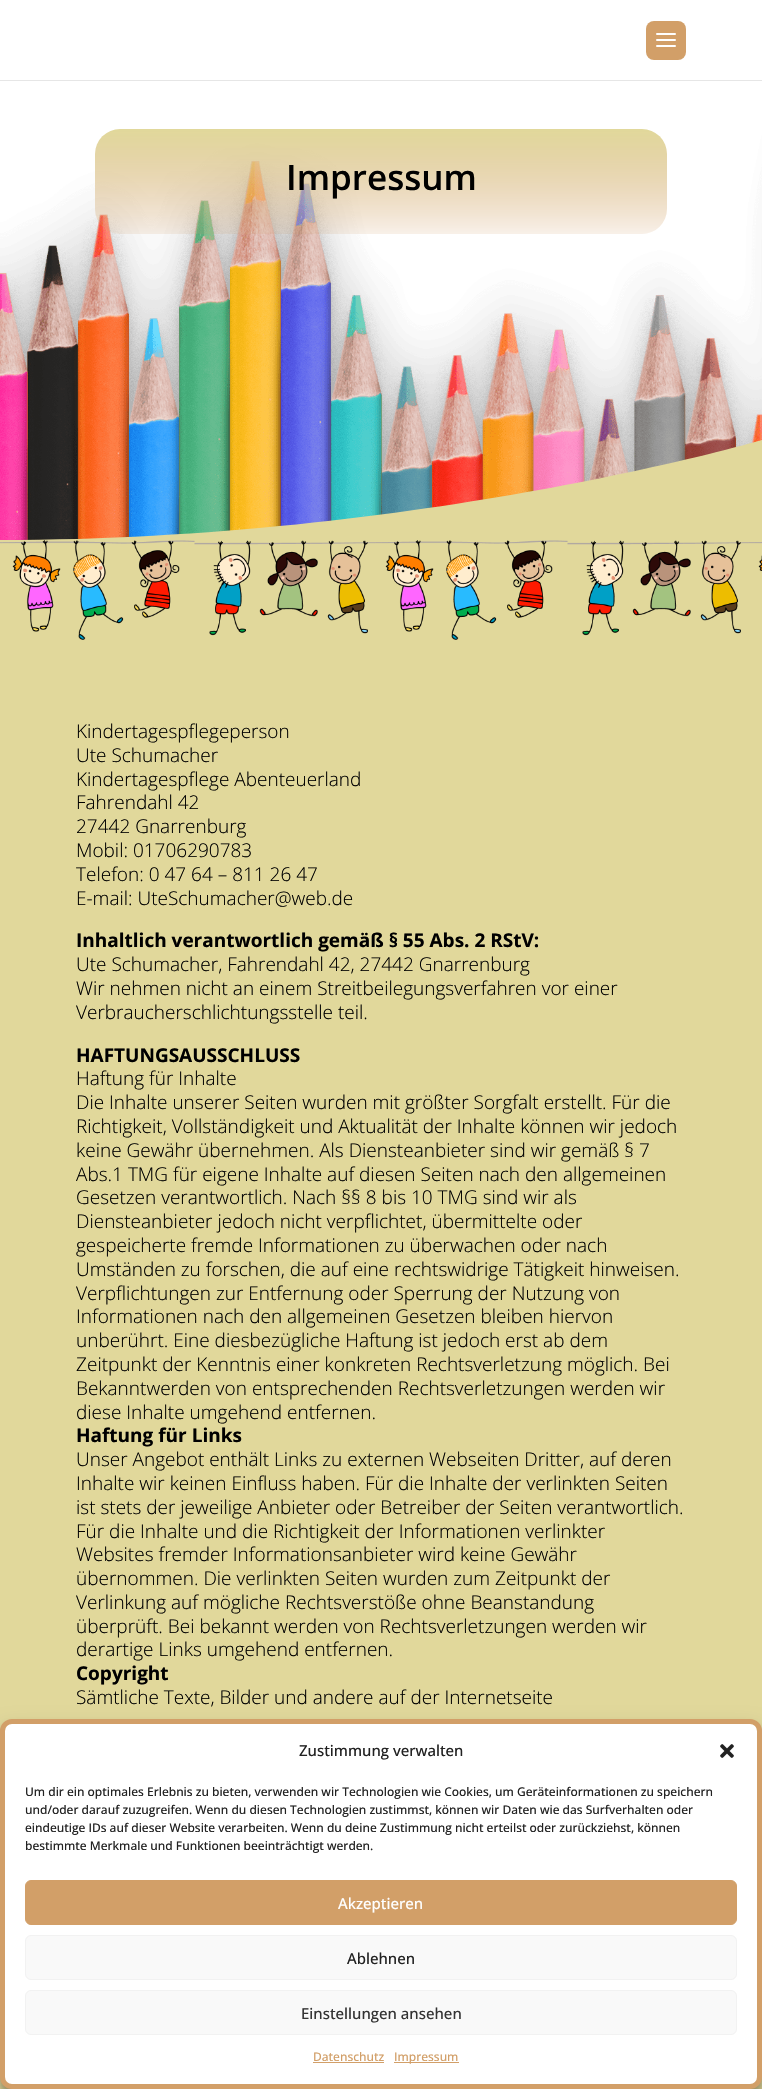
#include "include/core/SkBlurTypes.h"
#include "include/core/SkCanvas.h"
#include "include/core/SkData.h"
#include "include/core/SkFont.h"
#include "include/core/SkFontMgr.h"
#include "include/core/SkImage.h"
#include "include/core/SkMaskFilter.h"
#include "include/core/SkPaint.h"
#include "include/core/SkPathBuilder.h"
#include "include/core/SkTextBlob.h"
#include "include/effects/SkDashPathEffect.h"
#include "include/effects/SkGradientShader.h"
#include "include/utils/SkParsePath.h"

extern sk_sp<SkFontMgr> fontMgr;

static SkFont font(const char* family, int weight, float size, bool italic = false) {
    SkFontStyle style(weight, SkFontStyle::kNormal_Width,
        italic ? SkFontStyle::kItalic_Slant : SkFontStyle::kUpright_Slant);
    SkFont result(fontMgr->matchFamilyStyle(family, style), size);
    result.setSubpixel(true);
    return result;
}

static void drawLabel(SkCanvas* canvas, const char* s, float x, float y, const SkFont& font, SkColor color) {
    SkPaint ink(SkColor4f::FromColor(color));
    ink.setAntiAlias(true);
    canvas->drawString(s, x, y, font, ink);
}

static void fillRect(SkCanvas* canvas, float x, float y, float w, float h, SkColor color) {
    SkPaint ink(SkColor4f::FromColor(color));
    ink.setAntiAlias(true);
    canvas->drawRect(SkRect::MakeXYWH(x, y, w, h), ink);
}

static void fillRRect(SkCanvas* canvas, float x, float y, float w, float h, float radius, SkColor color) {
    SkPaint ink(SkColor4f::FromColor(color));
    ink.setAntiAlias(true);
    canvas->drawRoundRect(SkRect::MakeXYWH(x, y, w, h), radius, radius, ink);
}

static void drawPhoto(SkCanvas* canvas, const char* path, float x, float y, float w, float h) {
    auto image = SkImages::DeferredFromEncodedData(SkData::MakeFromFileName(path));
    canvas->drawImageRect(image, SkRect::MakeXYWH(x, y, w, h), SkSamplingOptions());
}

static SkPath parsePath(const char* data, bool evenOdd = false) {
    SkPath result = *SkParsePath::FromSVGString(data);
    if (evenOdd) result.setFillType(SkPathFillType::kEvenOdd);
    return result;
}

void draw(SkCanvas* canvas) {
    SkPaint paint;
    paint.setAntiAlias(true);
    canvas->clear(0xFFFFFFFF);
    fillRect(canvas, 0, 80, 762, 1, 0xFFE6E6E6);
    fillRRect(canvas, 646, 21, 40, 39, 8, 0xFFD29F68);
    fillRRect(canvas, 656, 33, 20, 2, 1, 0xFFFFFFFF);
    fillRRect(canvas, 656, 39, 20, 2, 1, 0xFFFFFFFF);
    fillRRect(canvas, 656, 45, 20, 2, 1, 0xFFFFFFFF);
    drawPhoto(canvas, "assets/img1.png", 0, 131, 762, 409);
    {
        const SkColor colors[] = {0xFFE1D89B, 0x26D29F68};
        const float stops[] = {0.01f, 1};
        const SkPoint ends[] = {{381, 129}, {381, 234}};
        paint.setShader(SkGradientShader::MakeLinear(ends, colors, stops, 2, SkTileMode::kClamp));
        paint.setAlpha(255);
    }
    canvas->drawRoundRect(SkRect::MakeXYWH(95, 129, 572, 105), 25, 25, paint);
    SkFont font1 = font("Open Sans", 600, 35);
    drawLabel(canvas, "Impressum", 286, 190, font1, 0xFF000000);
    paint.setShader(nullptr);
    paint.setColor(0xFFE1D89B);
    canvas->drawPath(parsePath("M762 540H0C421 540 762 440 762 440Z"), paint);
    fillRect(canvas, 0, 540, 762, 1191, 0xFFE1D89B);
    drawPhoto(canvas, "assets/img2.png", 0, 540, 762, 100);
    SkFont font2 = font("Open Sans", 300, 19);
    drawLabel(canvas, "Kindertagespflegeperson", 76, 738, font2, 0xFF000000);
    drawLabel(canvas, "Ute Schumacher", 76, 762, font2, 0xFF000000);
    drawLabel(canvas, "Kindertagespflege Abenteuerland", 76, 786, font2, 0xFF000000);
    drawLabel(canvas, "Fahrendahl 42", 76, 809, font2, 0xFF000000);
    drawLabel(canvas, "27442 Gnarrenburg", 76, 833, font2, 0xFF000000);
    drawLabel(canvas, "Mobil: 01706290783", 76, 857, font2, 0xFF000000);
    drawLabel(canvas, "Telefon: 0 47 64 – 811 26 47", 76, 881, font2, 0xFF000000);
    drawLabel(canvas, "E-mail: UteSchumacher@web.de", 76, 905, font2, 0xFF000000);
    SkFont font3 = font("Open Sans", 700, 19);
    drawLabel(canvas, "Inhaltlich verantwortlich gemäß § 55 Abs. 2 RStV:", 76, 947, font3, 0xFF000000);
    drawLabel(canvas, "Ute Schumacher, Fahrendahl 42, 27442 Gnarrenburg", 76, 971, font2, 0xFF000000);
    drawLabel(canvas, "Wir nehmen nicht an einem Streitbeilegungsverfahren vor einer", 76, 995, font2, 0xFF000000);
    drawLabel(canvas, "Verbraucherschlichtungsstelle teil.", 76, 1019, font2, 0xFF000000);
    drawLabel(canvas, "HAFTUNGSAUSSCHLUSS", 76, 1062, font3, 0xFF000000);
    drawLabel(canvas, "Haftung für Inhalte", 76, 1085, font2, 0xFF000000);
    drawLabel(canvas, "Die Inhalte unserer Seiten wurden mit größter Sorgfalt erstellt. Für die", 76, 1109, font2, 0xFF000000);
    drawLabel(canvas, "Richtigkeit, Vollständigkeit und Aktualität der Inhalte können wir jedoch", 76, 1133, font2, 0xFF000000);
    drawLabel(canvas, "keine Gewähr übernehmen. Als Diensteanbieter sind wir gemäß § 7", 76, 1157, font2, 0xFF000000);
    drawLabel(canvas, "Abs.1 TMG für eigene Inhalte auf diesen Seiten nach den allgemeinen", 76, 1181, font2, 0xFF000000);
    drawLabel(canvas, "Gesetzen verantwortlich. Nach §§ 8 bis 10 TMG sind wir als", 76, 1204, font2, 0xFF000000);
    drawLabel(canvas, "Diensteanbieter jedoch nicht verpflichtet, übermittelte oder", 76, 1228, font2, 0xFF000000);
    drawLabel(canvas, "gespeicherte fremde Informationen zu überwachen oder nach", 76, 1252, font2, 0xFF000000);
    drawLabel(canvas, "Umständen zu forschen, die auf eine rechtswidrige Tätigkeit hinweisen.", 76, 1276, font2, 0xFF000000);
    drawLabel(canvas, "Verpflichtungen zur Entfernung oder Sperrung der Nutzung von", 76, 1300, font2, 0xFF000000);
    drawLabel(canvas, "Informationen nach den allgemeinen Gesetzen bleiben hiervon", 76, 1323, font2, 0xFF000000);
    drawLabel(canvas, "unberührt. Eine diesbezügliche Haftung ist jedoch erst ab dem", 76, 1347, font2, 0xFF000000);
    drawLabel(canvas, "Zeitpunkt der Kenntnis einer konkreten Rechtsverletzung möglich. Bei", 76, 1371, font2, 0xFF000000);
    drawLabel(canvas, "Bekanntwerden von entsprechenden Rechtsverletzungen werden wir", 76, 1395, font2, 0xFF000000);
    drawLabel(canvas, "diese Inhalte umgehend entfernen.", 76, 1419, font2, 0xFF000000);
    drawLabel(canvas, "Haftung für Links", 76, 1442, font3, 0xFF000000);
    drawLabel(canvas, "Unser Angebot enthält Links zu externen Webseiten Dritter, auf deren", 76, 1466, font2, 0xFF000000);
    drawLabel(canvas, "Inhalte wir keinen Einfluss haben. Für die Inhalte der verlinkten Seiten", 76, 1490, font2, 0xFF000000);
    drawLabel(canvas, "ist stets der jeweilige Anbieter oder Betreiber der Seiten verantwortlich.", 76, 1514, font2, 0xFF000000);
    drawLabel(canvas, "Für die Inhalte und die Richtigkeit der Informationen verlinkter", 76, 1538, font2, 0xFF000000);
    drawLabel(canvas, "Websites fremder Informationsanbieter wird keine Gewähr", 76, 1561, font2, 0xFF000000);
    drawLabel(canvas, "übernommen. Die verlinkten Seiten wurden zum Zeitpunkt der", 76, 1585, font2, 0xFF000000);
    drawLabel(canvas, "Verlinkung auf mögliche Rechtsverstöße ohne Beanstandung", 76, 1609, font2, 0xFF000000);
    drawLabel(canvas, "überprüft. Bei bekannt werden von Rechtsverletzungen werden wir", 76, 1633, font2, 0xFF000000);
    drawLabel(canvas, "derartige Links umgehend entfernen.", 76, 1656, font2, 0xFF000000);
    drawLabel(canvas, "Copyright", 76, 1680, font3, 0xFF000000);
    drawLabel(canvas, "Sämtliche Texte, Bilder und andere auf der Internetseite", 76, 1704, font2, 0xFF000000);
    fillRect(canvas, 0, 2077, 762, 12, 0xFFE1D89B);
    paint.setColor(0x3B000000);
    paint.setMaskFilter(SkMaskFilter::MakeBlur(kNormal_SkBlurStyle, 3));
    canvas->drawRoundRect(SkRect::MakeXYWH(0, 1725, 762, 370), 12, 12, paint);
    paint.setMaskFilter(nullptr);
    paint.setColor(0x30000000);
    paint.setMaskFilter(SkMaskFilter::MakeBlur(kNormal_SkBlurStyle, 10));
    canvas->drawRoundRect(SkRect::MakeXYWH(0, 1729, 762, 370), 12, 12, paint);
    paint.setMaskFilter(nullptr);
    paint.setColor(0xFFFFFFFF);
    canvas->drawRoundRect(SkRect::MakeXYWH(2.5f, 1721.5f, 757, 365), 9.5f, 9.5f, paint);
    paint.setStroke(true);
    paint.setStrokeWidth(5);
    paint.setColor(0xFFD29F68);
    canvas->drawRoundRect(SkRect::MakeXYWH(2.5f, 1721.5f, 757, 365), 9.5f, 9.5f, paint);
    SkFont font4 = font("Open Sans", 500, 15);
    drawLabel(canvas, "Zustimmung verwalten", 299, 1756, font4, 0xFF222222);
    drawPhoto(canvas, "assets/img3.png", 720, 1744, 14, 14);
    SkFont font5 = font("Open Sans", 500, 12);
    drawLabel(canvas, "Um dir ein optimales Erlebnis zu bieten, verwenden wir Technologien wie Cookies, um Geräteinformationen zu speichern", 25, 1796, font5, 0xFF222222);
    drawLabel(canvas, "und/oder darauf zuzugreifen. Wenn du diesen Technologien zustimmst, können wir Daten wie das Surfverhalten oder", 25, 1814, font5, 0xFF222222);
    drawLabel(canvas, "eindeutige IDs auf dieser Website verarbeiten. Wenn du deine Zustimmung nicht erteilst oder zurückziehst, können", 25, 1832, font5, 0xFF222222);
    drawLabel(canvas, "bestimmte Merkmale und Funktionen beeinträchtigt werden.", 25, 1850, font5, 0xFF222222);
    paint.setStroke(false);
    canvas->drawRoundRect(SkRect::MakeXYWH(25.5f, 1880.5f, 711, 44), 5.5f, 5.5f, paint);
    paint.setStroke(true);
    paint.setStrokeWidth(1);
    canvas->drawRoundRect(SkRect::MakeXYWH(25.5f, 1880.5f, 711, 44), 5.5f, 5.5f, paint);
    drawLabel(canvas, "Akzeptieren", 338, 1909, font4, 0xFFFFFFFF);
    paint.setStroke(false);
    paint.setColor(0xFFF9F9F9);
    canvas->drawRoundRect(SkRect::MakeXYWH(25.5f, 1935.5f, 711, 44), 5.5f, 5.5f, paint);
    paint.setStroke(true);
    paint.setColor(0xFFF2F2F2);
    canvas->drawRoundRect(SkRect::MakeXYWH(25.5f, 1935.5f, 711, 44), 5.5f, 5.5f, paint);
    drawLabel(canvas, "Ablehnen", 347, 1964, font4, 0xFF222222);
    paint.setStroke(false);
    paint.setColor(0xFFF9F9F9);
    canvas->drawRoundRect(SkRect::MakeXYWH(25.5f, 1990.5f, 711, 44), 5.5f, 5.5f, paint);
    paint.setStroke(true);
    paint.setColor(0xFFF2F2F2);
    canvas->drawRoundRect(SkRect::MakeXYWH(25.5f, 1990.5f, 711, 44), 5.5f, 5.5f, paint);
    drawLabel(canvas, "Einstellungen ansehen", 301, 2019, font4, 0xFF333333);
    drawLabel(canvas, "Datenschutz", 313, 2061, font5, 0xFFD29F68);
    fillRect(canvas, 313, 2062, 71, 1, 0xFFD29F68);
    fillRect(canvas, 394, 2062, 65, 1, 0xFFD29F68);
    drawLabel(canvas, "Impressum", 394, 2061, font5, 0xFFD29F68);
}
